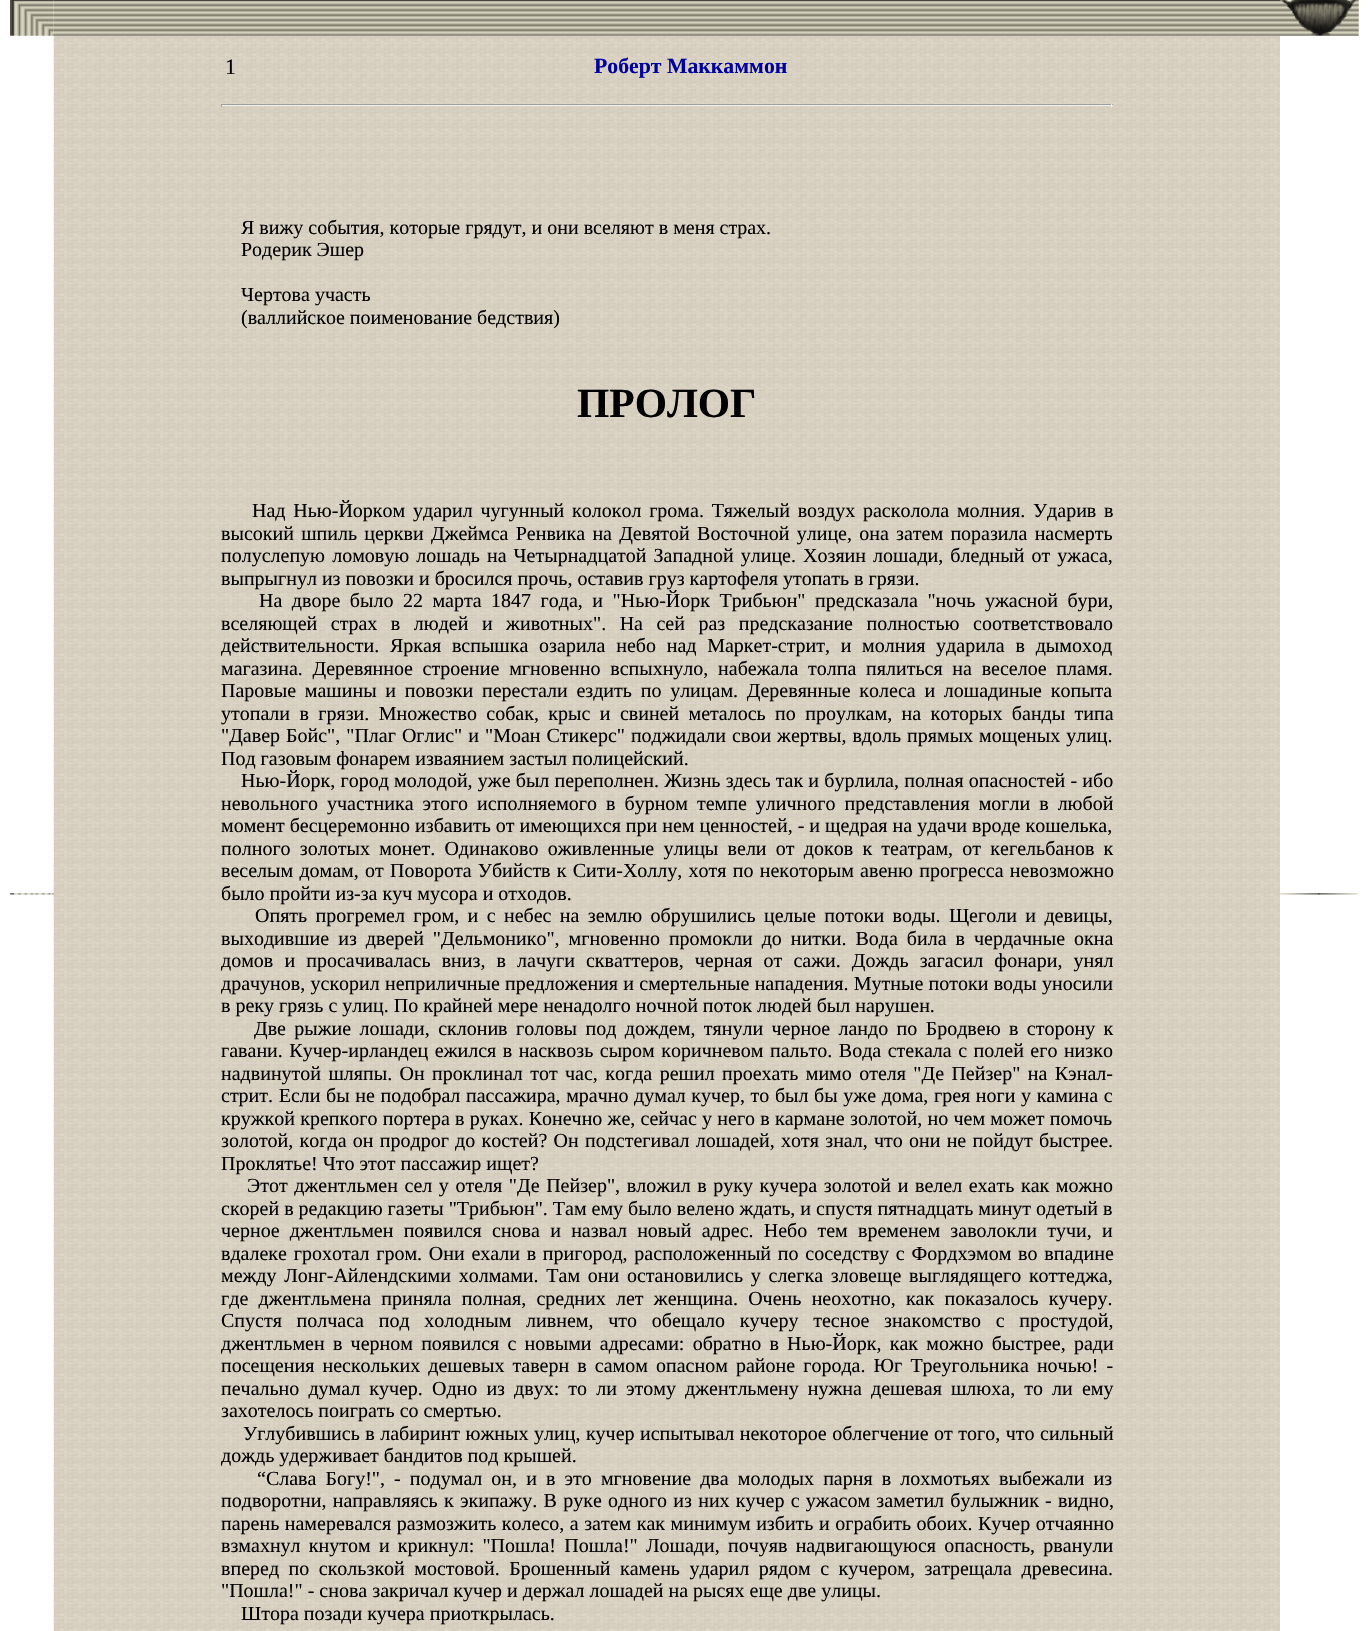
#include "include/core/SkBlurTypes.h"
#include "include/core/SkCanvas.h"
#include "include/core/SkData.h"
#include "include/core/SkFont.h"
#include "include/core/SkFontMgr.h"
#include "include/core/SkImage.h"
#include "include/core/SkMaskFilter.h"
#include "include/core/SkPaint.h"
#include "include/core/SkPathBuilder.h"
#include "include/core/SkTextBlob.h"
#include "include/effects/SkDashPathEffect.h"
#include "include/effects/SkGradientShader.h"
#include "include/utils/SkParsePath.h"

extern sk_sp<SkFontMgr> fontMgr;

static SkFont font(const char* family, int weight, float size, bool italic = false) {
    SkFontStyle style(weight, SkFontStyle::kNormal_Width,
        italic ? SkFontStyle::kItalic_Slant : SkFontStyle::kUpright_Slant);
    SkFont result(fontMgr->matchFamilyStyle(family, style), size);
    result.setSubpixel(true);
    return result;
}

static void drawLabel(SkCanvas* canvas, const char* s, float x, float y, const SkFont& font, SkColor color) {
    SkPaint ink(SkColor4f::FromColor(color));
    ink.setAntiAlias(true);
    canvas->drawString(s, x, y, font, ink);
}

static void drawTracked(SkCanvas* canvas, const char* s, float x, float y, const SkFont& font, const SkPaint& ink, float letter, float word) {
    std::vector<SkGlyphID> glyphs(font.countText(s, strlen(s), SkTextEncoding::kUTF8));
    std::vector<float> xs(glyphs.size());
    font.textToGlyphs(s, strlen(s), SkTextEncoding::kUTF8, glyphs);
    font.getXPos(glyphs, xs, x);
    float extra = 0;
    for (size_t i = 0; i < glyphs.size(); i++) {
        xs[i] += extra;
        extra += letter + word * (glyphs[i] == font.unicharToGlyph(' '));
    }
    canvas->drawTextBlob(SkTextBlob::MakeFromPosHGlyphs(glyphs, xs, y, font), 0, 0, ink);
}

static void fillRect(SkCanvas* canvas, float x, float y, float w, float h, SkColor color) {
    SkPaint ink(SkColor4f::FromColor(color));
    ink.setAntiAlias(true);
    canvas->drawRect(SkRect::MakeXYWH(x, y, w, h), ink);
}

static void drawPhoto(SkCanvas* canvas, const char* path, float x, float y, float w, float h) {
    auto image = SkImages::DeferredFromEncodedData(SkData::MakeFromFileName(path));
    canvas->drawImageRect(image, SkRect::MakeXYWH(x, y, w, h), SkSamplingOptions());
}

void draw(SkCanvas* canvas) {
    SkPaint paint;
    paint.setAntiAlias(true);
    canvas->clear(0xFFFFFFFF);
    drawPhoto(canvas, "assets/img5.png", 53, 35, 1227, 1596);
    drawPhoto(canvas, "assets/img1.png", 10, 0, 44, 36);
    drawPhoto(canvas, "assets/img2.png", 53, 0, 1227, 36);
    drawPhoto(canvas, "assets/img3.png", 1280, 0, 79, 36);
    drawPhoto(canvas, "assets/img4.png", 10, 893, 44, 2);
    SkFont font1 = font("Liberation Serif", 400, 22);
    drawLabel(canvas, "1", 225, 74, font1, 0xFF000000);
    SkFont font2 = font("Liberation Serif", 700, 21.75f);
    drawLabel(canvas, "Роберт Маккаммон", 594, 73, font2, 0xFF00009C);
    fillRect(canvas, 221, 104, 892, 1, 0xFF9F9F9F);
    fillRect(canvas, 1111, 104, 1, 3, 0xFFEEEEEE);
    fillRect(canvas, 221, 105, 892, 1, 0xFFEEEEEE);
    fillRect(canvas, 221, 104, 1, 3, 0xFF9F9F9F);
    SkFont font3 = font("Liberation Serif", 400, 20);
    drawLabel(canvas, "Я вижу события, которые грядут, и они вселяют в меня страх.", 241, 234, font3, 0xFF000000);
    drawLabel(canvas, "Родерик Эшер", 241, 256, font3, 0xFF000000);
    drawLabel(canvas, "Чертова участь", 241, 301, font3, 0xFF000000);
    drawLabel(canvas, "(валлийское поименование бедствия)", 241, 324, font3, 0xFF000000);
    SkFont font4 = font("Liberation Serif", 700, 41.5f);
    drawLabel(canvas, "ПРОЛОГ", 577, 417, font4, 0xFF000000);
    paint.setColor(0xFF000000);
    drawTracked(canvas, "Над Нью-Йорком ударил чугунный колокол грома. Тяжелый воздух расколола молния. Ударив в", 252, 517, font3, paint, 0, 2.75f);
    drawTracked(canvas, "высокий шпиль церкви Джеймса Ренвика на Девятой Восточной улице, она затем поразила насмерть", 221, 540, font3, paint, 0, 2.25f);
    drawTracked(canvas, "полуслепую ломовую лошадь на Четырнадцатой Западной улице. Хозяин лошади, бледный от ужаса,", 221, 562, font3, paint, 0, 2.1f);
    drawLabel(canvas, "выпрыгнул из повозки и бросился прочь, оставив груз картофеля утопать в грязи.", 221, 585, font3, 0xFF000000);
    drawTracked(canvas, "На дворе было 22 марта 1847 года, и \"Нью-Йорк Трибьюн\" предсказала \"ночь ужасной бури,", 259, 607, font3, paint, 0, 4.5f);
    drawTracked(canvas, "вселяющей страх в людей и животных\". На сей раз предсказание полностью соответствовало", 221, 630, font3, paint, 0, 8.5f);
    drawTracked(canvas, "действительности. Яркая вспышка озарила небо над Маркет-стрит, и молния ударила в дымоход", 221, 652, font3, paint, 0, 5.75f);
    drawTracked(canvas, "магазина. Деревянное строение мгновенно вспыхнуло, набежала толпа пялиться на веселое пламя.", 221, 675, font3, paint, 0, 4.75f);
    drawTracked(canvas, "Паровые машины и повозки перестали ездить по улицам. Деревянные колеса и лошадиные копыта", 221, 697, font3, paint, 0, 3.75f);
    drawTracked(canvas, "утопали в грязи. Множество собак, крыс и свиней металось по проулкам, на которых банды типа", 221, 720, font3, paint, 0, 4.4f);
    drawTracked(canvas, "\"Давер Бойс\", \"Плаг Оглис\" и \"Моан Стикерс\" поджидали свои жертвы, вдоль прямых мощеных улиц.", 221, 742, font3, paint, 0, 1);
    drawLabel(canvas, "Под газовым фонарем изваянием застыл полицейский.", 221, 765, font3, 0xFF000000);
    drawTracked(canvas, "Нью-Йорк, город молодой, уже был переполнен. Жизнь здесь так и бурлила, полная опасностей - ибо", 241, 787, font3, paint, 0, 0.2f);
    drawTracked(canvas, "невольного участника этого исполняемого в бурном темпе уличного представления могли в любой", 221, 810, font3, paint, 0, 4);
    drawLabel(canvas, "момент бесцеремонно избавить от имеющихся при нем ценностей, - и щедрая на удачи вроде кошелька,", 221, 832, font3, 0xFF000000);
    drawTracked(canvas, "полного золотых монет. Одинаково оживленные улицы вели от доков к театрам, от кегельбанов к", 221, 855, font3, paint, 0, 4.25f);
    drawTracked(canvas, "веселым домам, от Поворота Убийств к Сити-Холлу, хотя по некоторым авеню прогресса невозможно", 221, 877, font3, paint, 0, 1.25f);
    drawLabel(canvas, "было пройти из-за куч мусора и отходов.", 221, 900, font3, 0xFF000000);
    drawTracked(canvas, "Опять прогремел гром, и с небес на землю обрушились целые потоки воды. Щеголи и девицы,", 255, 922, font3, paint, 0, 3.4f);
    drawTracked(canvas, "выходившие из дверей \"Дельмонико\", мгновенно промокли до нитки. Вода била в чердачные окна", 221, 945, font3, paint, 0, 4);
    drawTracked(canvas, "домов и просачивалась вниз, в лачуги скваттеров, черная от сажи. Дождь загасил фонари, унял", 221, 967, font3, paint, 0, 6.1f);
    drawTracked(canvas, "драчунов, ускорил неприличные предложения и смертельные нападения. Мутные потоки воды уносили", 221, 990, font3, paint, 0, 0.25f);
    drawLabel(canvas, "в реку грязь с улиц. По крайней мере ненадолго ночной поток людей был нарушен.", 221, 1012, font3, 0xFF000000);
    drawTracked(canvas, "Две рыжие лошади, склонив головы под дождем, тянули черное ландо по Бродвею в сторону к", 254, 1035, font3, paint, 0, 3.4f);
    drawTracked(canvas, "гавани. Кучер-ирландец ежился в насквозь сыром коричневом пальто. Вода стекала с полей его низко", 221, 1057, font3, paint, 0, 1.5f);
    drawTracked(canvas, "надвинутой шляпы. Он проклинал тот час, когда решил проехать мимо отеля \"Де Пейзер\" на Кэнал-", 221, 1080, font3, paint, 0, 2.4f);
    drawTracked(canvas, "стрит. Если бы не подобрал пассажира, мрачно думал кучер, то был бы уже дома, грея ноги у камина с", 221, 1102, font3, paint, 0, 0.6f);
    drawTracked(canvas, "кружкой крепкого портера в руках. Конечно же, сейчас у него в кармане золотой, но чем может помочь", 221, 1125, font3, paint, 0, 0.25f);
    drawTracked(canvas, "золотой, когда он продрог до костей? Он подстегивал лошадей, хотя знал, что они не пойдут быстрее.", 221, 1147, font3, paint, 0, 1.25f);
    drawLabel(canvas, "Проклятье! Что этот пассажир ищет?", 221, 1170, font3, 0xFF000000);
    drawTracked(canvas, "Этот джентльмен сел у отеля \"Де Пейзер\", вложил в руку кучера золотой и велел ехать как можно", 247, 1192, font3, paint, 0, 1.6f);
    drawLabel(canvas, "скорей в редакцию газеты \"Трибьюн\". Там ему было велено ждать, и спустя пятнадцать минут одетый в", 221, 1215, font3, 0xFF000000);
    drawTracked(canvas, "черное джентльмен появился снова и назвал новый адрес. Небо тем временем заволокли тучи, и", 221, 1237, font3, paint, 0, 5.25f);
    drawTracked(canvas, "вдалеке грохотал гром. Они ехали в пригород, расположенный по соседству с Фордхэмом во впадине", 221, 1260, font3, paint, 0, 1.75f);
    drawTracked(canvas, "между Лонг-Айлендскими холмами. Там они остановились у слегка зловеще выглядящего коттеджа,", 221, 1282, font3, paint, 0, 2.75f);
    drawTracked(canvas, "где джентльмена приняла полная, средних лет женщина. Очень неохотно, как показалось кучеру.", 221, 1305, font3, paint, 0, 5.25f);
    drawTracked(canvas, "Спустя полчаса под холодным ливнем, что обещало кучеру тесное знакомство с простудой,", 221, 1327, font3, paint, 0, 9.75f);
    drawTracked(canvas, "джентльмен в черном появился с новыми адресами: обратно в Нью-Йорк, как можно быстрее, ради", 221, 1350, font3, paint, 0, 3.25f);
    drawTracked(canvas, "посещения нескольких дешевых таверн в самом опасном районе города. Юг Треугольника ночью! -", 221, 1372, font3, paint, 0, 3.1f);
    drawTracked(canvas, "печально думал кучер. Одно из двух: то ли этому джентльмену нужна дешевая шлюха, то ли ему", 221, 1395, font3, paint, 0, 4.1f);
    drawLabel(canvas, "захотелось поиграть со смертью.", 221, 1417, font3, 0xFF000000);
    drawTracked(canvas, "Углубившись в лабиринт южных улиц, кучер испытывал некоторое облегчение от того, что сильный", 243, 1440, font3, paint, 0, 0.5f);
    drawLabel(canvas, "дождь удерживает бандитов под крышей.", 221, 1462, font3, 0xFF000000);
    drawTracked(canvas, "“Слава Богу!\", - подумал он, и в это мгновение два молодых парня в лохмотьях выбежали из", 257, 1485, font3, paint, 0, 4.1f);
    drawTracked(canvas, "подворотни, направляясь к экипажу. В руке одного из них кучер с ужасом заметил булыжник - видно,", 221, 1507, font3, paint, 0, 1.25f);
    drawTracked(canvas, "парень намеревался размозжить колесо, а затем как минимум избить и ограбить обоих. Кучер отчаянно", 221, 1530, font3, paint, 0, 0.5f);
    drawTracked(canvas, "взмахнул кнутом и крикнул: \"Пошла! Пошла!\" Лошади, почуяв надвигающуюся опасность, рванули", 221, 1552, font3, paint, 0, 3.25f);
    drawTracked(canvas, "вперед по скользкой мостовой. Брошенный камень ударил рядом с кучером, затрещала древесина.", 221, 1575, font3, paint, 0, 4.5f);
    drawLabel(canvas, "\"Пошла!\" - снова закричал кучер и держал лошадей на рысях еще две улицы.", 221, 1597, font3, 0xFF000000);
    drawLabel(canvas, "Штора позади кучера приоткрылась.", 241, 1620, font3, 0xFF000000);
    drawPhoto(canvas, "assets/img6.png", 1280, 893, 78, 2);
}
